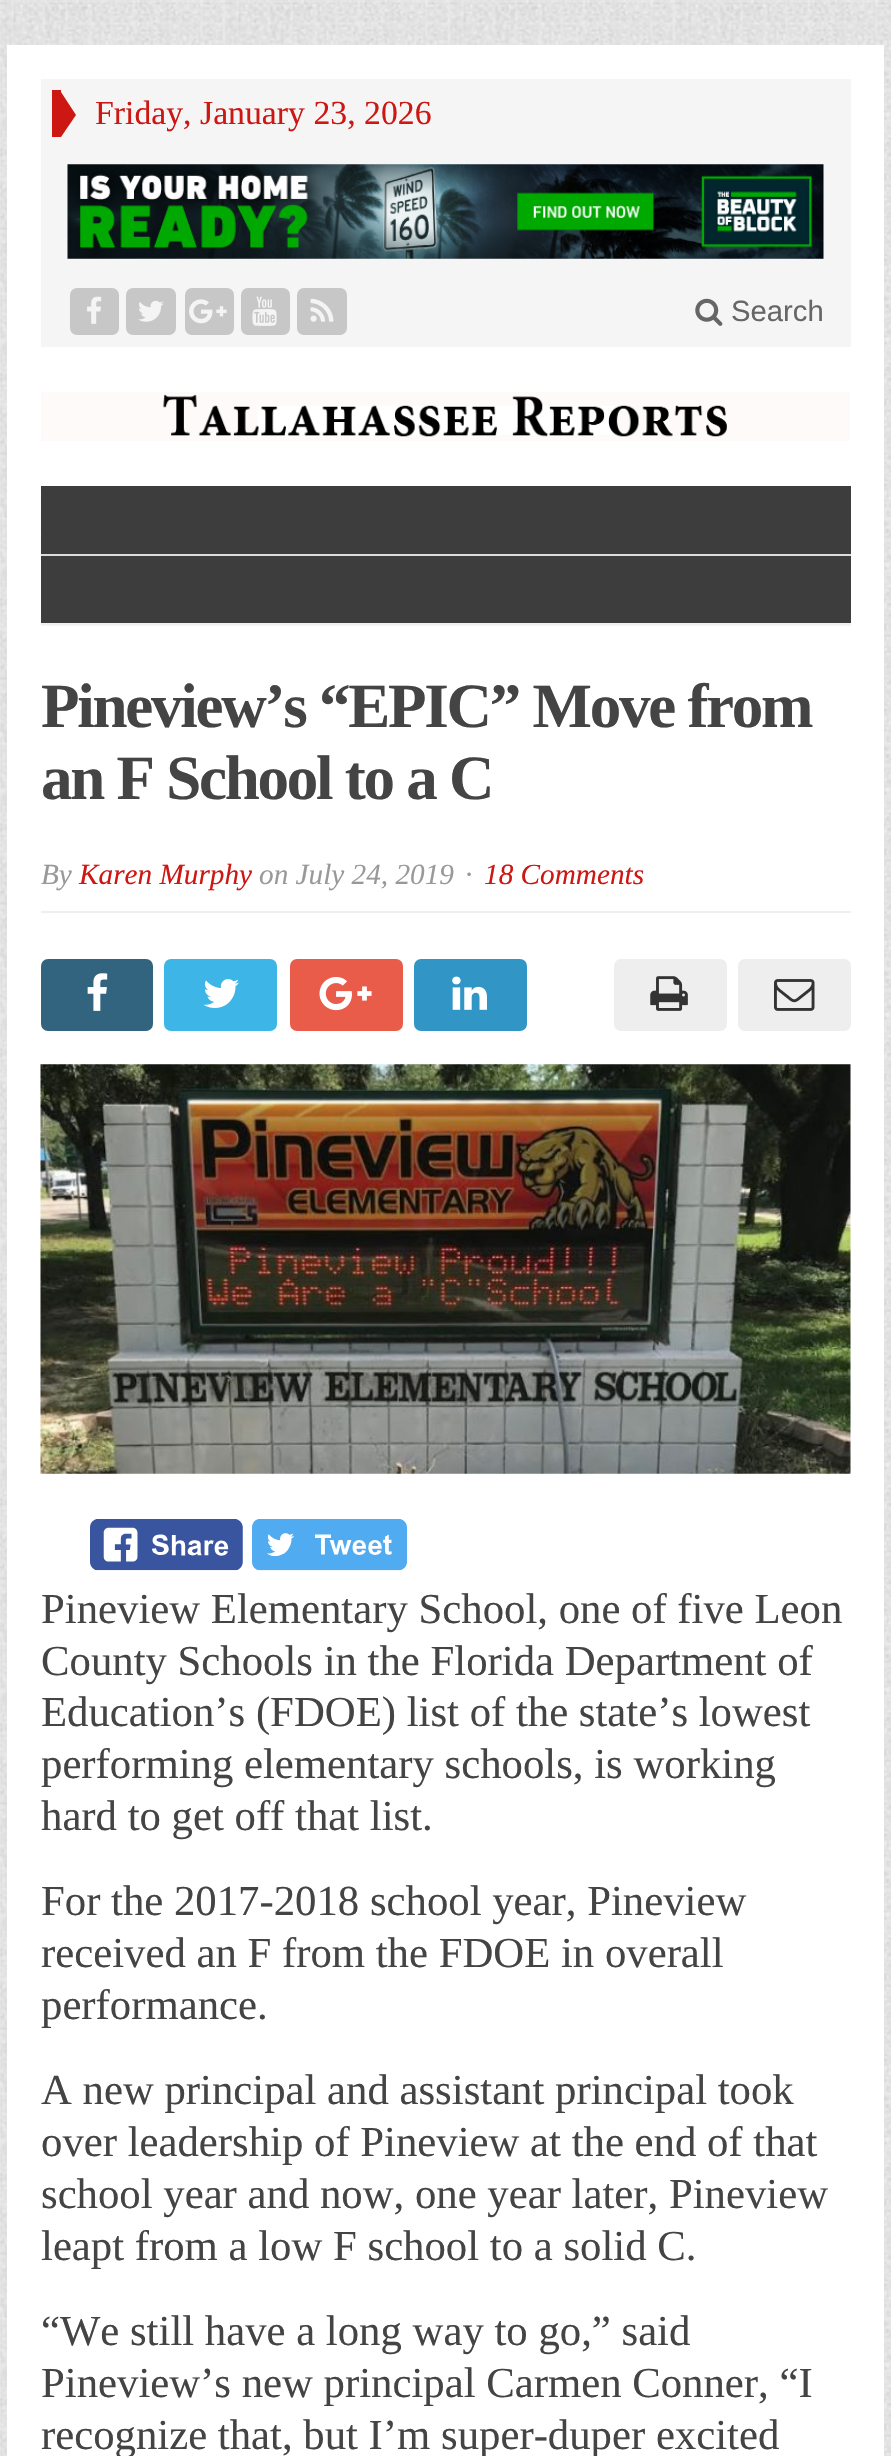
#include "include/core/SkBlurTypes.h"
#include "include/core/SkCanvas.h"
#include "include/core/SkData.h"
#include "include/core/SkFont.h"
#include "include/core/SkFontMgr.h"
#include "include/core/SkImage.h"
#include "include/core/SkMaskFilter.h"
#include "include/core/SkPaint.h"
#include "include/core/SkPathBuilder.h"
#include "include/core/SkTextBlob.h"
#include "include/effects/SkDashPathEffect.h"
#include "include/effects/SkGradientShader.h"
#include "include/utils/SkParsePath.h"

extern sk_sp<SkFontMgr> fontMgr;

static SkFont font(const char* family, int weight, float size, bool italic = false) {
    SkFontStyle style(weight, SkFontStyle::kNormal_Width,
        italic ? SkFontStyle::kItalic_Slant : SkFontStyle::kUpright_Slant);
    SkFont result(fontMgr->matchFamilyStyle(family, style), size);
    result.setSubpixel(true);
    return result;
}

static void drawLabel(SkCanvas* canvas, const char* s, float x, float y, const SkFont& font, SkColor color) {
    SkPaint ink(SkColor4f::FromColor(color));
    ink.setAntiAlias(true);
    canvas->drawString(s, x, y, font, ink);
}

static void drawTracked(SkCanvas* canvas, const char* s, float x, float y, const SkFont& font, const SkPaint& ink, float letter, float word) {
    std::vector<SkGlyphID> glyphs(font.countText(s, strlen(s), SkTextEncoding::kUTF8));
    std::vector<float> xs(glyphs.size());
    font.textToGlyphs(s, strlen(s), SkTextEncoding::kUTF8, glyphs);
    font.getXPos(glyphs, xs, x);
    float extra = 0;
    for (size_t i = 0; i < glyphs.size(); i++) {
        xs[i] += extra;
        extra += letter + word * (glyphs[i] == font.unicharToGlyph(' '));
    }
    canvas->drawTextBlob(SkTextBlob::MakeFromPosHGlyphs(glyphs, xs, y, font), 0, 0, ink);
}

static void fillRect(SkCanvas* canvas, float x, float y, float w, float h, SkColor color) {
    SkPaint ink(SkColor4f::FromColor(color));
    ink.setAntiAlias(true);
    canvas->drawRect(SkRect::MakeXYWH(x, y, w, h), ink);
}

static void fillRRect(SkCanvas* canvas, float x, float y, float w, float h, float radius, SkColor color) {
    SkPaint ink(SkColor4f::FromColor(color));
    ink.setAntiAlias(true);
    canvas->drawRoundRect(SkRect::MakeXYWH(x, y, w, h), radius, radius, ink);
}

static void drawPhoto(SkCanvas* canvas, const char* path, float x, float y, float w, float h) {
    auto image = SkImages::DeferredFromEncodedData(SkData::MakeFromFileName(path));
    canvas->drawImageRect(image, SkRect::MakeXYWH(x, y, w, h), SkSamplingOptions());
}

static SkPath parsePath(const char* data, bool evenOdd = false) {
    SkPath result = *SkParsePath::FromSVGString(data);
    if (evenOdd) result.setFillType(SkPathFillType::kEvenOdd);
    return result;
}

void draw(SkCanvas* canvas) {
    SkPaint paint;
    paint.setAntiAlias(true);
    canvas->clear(0xFFFFFFFF);
    drawPhoto(canvas, "assets/img1.png", 0, 0, 891, 2456);
    fillRect(canvas, 7, 45, 877, 2411, 0xFFFFFFFF);
    fillRect(canvas, 41, 79, 810, 268, 0xFFF5F5F5);
    fillRect(canvas, 52, 90, 9, 47, 0xFFCD1713);
    paint.setColor(0xFFCD1713);
    canvas->drawPath(parsePath("M61 137V92L76 115Z"), paint);
    SkFont font1 = font("Liberation Serif", 400, 33.75f);
    drawLabel(canvas, "Friday, January 23, 2026", 95, 124, font1, 0xFFCD1713);
    drawPhoto(canvas, "assets/img2.png", 67, 164, 757, 95);
    fillRRect(canvas, 70, 288, 49, 47, 7, 0xFFC7C7C7);
    drawPhoto(canvas, "assets/img3.png", 87, 296, 15, 28);
    fillRRect(canvas, 126, 288, 50, 47, 7, 0xFFC7C7C7);
    drawPhoto(canvas, "assets/img4.png", 138, 300, 26, 22);
    fillRRect(canvas, 185, 288, 49, 47, 7, 0xFFC7C7C7);
    drawPhoto(canvas, "assets/img5.png", 189, 299, 38, 25);
    fillRRect(canvas, 241, 288, 49, 47, 7, 0xFFC7C7C7);
    drawPhoto(canvas, "assets/img6.png", 252, 296, 25, 30);
    fillRRect(canvas, 297, 288, 50, 47, 7, 0xFFC7C7C7);
    drawPhoto(canvas, "assets/img7.png", 310, 298, 24, 24);
    drawPhoto(canvas, "assets/img8.png", 695, 298, 28, 28);
    SkFont font2 = font("Liberation Sans", 400, 29.25f);
    drawLabel(canvas, "Search", 731, 321, font2, 0xFF666666);
    drawPhoto(canvas, "assets/img9.png", 41, 392, 809, 49);
    drawPhoto(canvas, "assets/img10.png", 40, 486, 1, 70);
    fillRect(canvas, 41, 554, 810, 2, 0xFFDDDDDD);
    fillRect(canvas, 41, 486, 810, 68, 0xFF3D3D3D);
    fillRect(canvas, 41, 625, 810, 1, 0xFFF5F5F5);
    fillRect(canvas, 41, 623, 810, 2, 0xFFEFEFEF);
    fillRect(canvas, 41, 556, 810, 67, 0xFF3D3D3D);
    fillRect(canvas, 41, 911, 810, 2, 0xFFEFEFEF);
    SkFont font3 = font("Liberation Serif", 700, 63);
    paint.setColor(0xFF444444);
    drawTracked(canvas, "Pineview’s “EPIC” Move from", 41, 727, font3, paint, -2.25f, 0);
    drawTracked(canvas, "an F School to a C", 41, 799, font3, paint, -2.25f, 0);
    SkFont font4 = font("Liberation Serif", 400, 29.25f, true);
    drawLabel(canvas, "By", 41, 884, font4, 0xFF999999);
    drawLabel(canvas, "Karen Murphy", 79, 884, font4, 0xFFCD1713);
    drawLabel(canvas, "on July 24, 2019", 259, 884, font4, 0xFF999999);
    drawLabel(canvas, "·", 465, 884, font4, 0xFF999999);
    drawLabel(canvas, "18 Comments", 484, 884, font4, 0xFFCD1713);
    fillRRect(canvas, 41, 959, 112, 72, 7, 0xFF33647F);
    drawPhoto(canvas, "assets/img11.png", 87, 973, 21, 38);
    fillRRect(canvas, 164, 959, 113, 72, 7, 0xFF3DB5E6);
    drawPhoto(canvas, "assets/img12.png", 203, 979, 36, 29);
    fillRRect(canvas, 290, 959, 113, 72, 7, 0xFFEA5C4A);
    drawPhoto(canvas, "assets/img13.png", 319, 977, 53, 34);
    fillRRect(canvas, 414, 959, 113, 72, 7, 0xFF3196C6);
    drawPhoto(canvas, "assets/img14.png", 452, 976, 35, 34);
    fillRRect(canvas, 614, 959, 113, 72, 7, 0xFFEEEEEE);
    drawPhoto(canvas, "assets/img15.png", 650, 976, 38, 35);
    fillRRect(canvas, 738, 959, 113, 72, 7, 0xFFEEEEEE);
    drawPhoto(canvas, "assets/img16.png", 774, 979, 41, 32);
    drawPhoto(canvas, "assets/img17.png", 40, 1064, 811, 410);
    drawPhoto(canvas, "assets/img18.png", 90, 1519, 153, 52);
    drawPhoto(canvas, "assets/img19.png", 252, 1519, 155, 52);
    SkFont font5 = font("Liberation Serif", 400, 42.75f);
    drawLabel(canvas, "Pineview Elementary School, one of five Leon", 41, 1623, font5, 0xFF444444);
    drawLabel(canvas, "County Schools in the Florida Department of", 41, 1675, font5, 0xFF444444);
    drawLabel(canvas, "Education’s (FDOE) list of the state’s lowest", 41, 1726, font5, 0xFF444444);
    drawLabel(canvas, "performing elementary schools, is working", 41, 1778, font5, 0xFF444444);
    drawLabel(canvas, "hard to get off that list.", 41, 1830, font5, 0xFF444444);
    drawLabel(canvas, "For the 2017-2018 school year, Pineview", 41, 1915, font5, 0xFF444444);
    drawLabel(canvas, "received an F from the FDOE in overall", 41, 1967, font5, 0xFF444444);
    drawLabel(canvas, "performance.", 41, 2019, font5, 0xFF444444);
    drawLabel(canvas, "A new principal and assistant principal took", 41, 2104, font5, 0xFF444444);
    drawLabel(canvas, "over leadership of Pineview at the end of that", 41, 2156, font5, 0xFF444444);
    drawLabel(canvas, "school year and now, one year later, Pineview", 41, 2208, font5, 0xFF444444);
    drawLabel(canvas, "leapt from a low F school to a solid C.", 41, 2260, font5, 0xFF444444);
    drawLabel(canvas, "“We still have a long way to go,” said", 41, 2345, font5, 0xFF444444);
    drawLabel(canvas, "Pineview’s new principal Carmen Conner, “I", 41, 2397, font5, 0xFF444444);
    drawLabel(canvas, "recognize that, but I’m super-duper excited", 41, 2449, font5, 0xFF444444);
}
